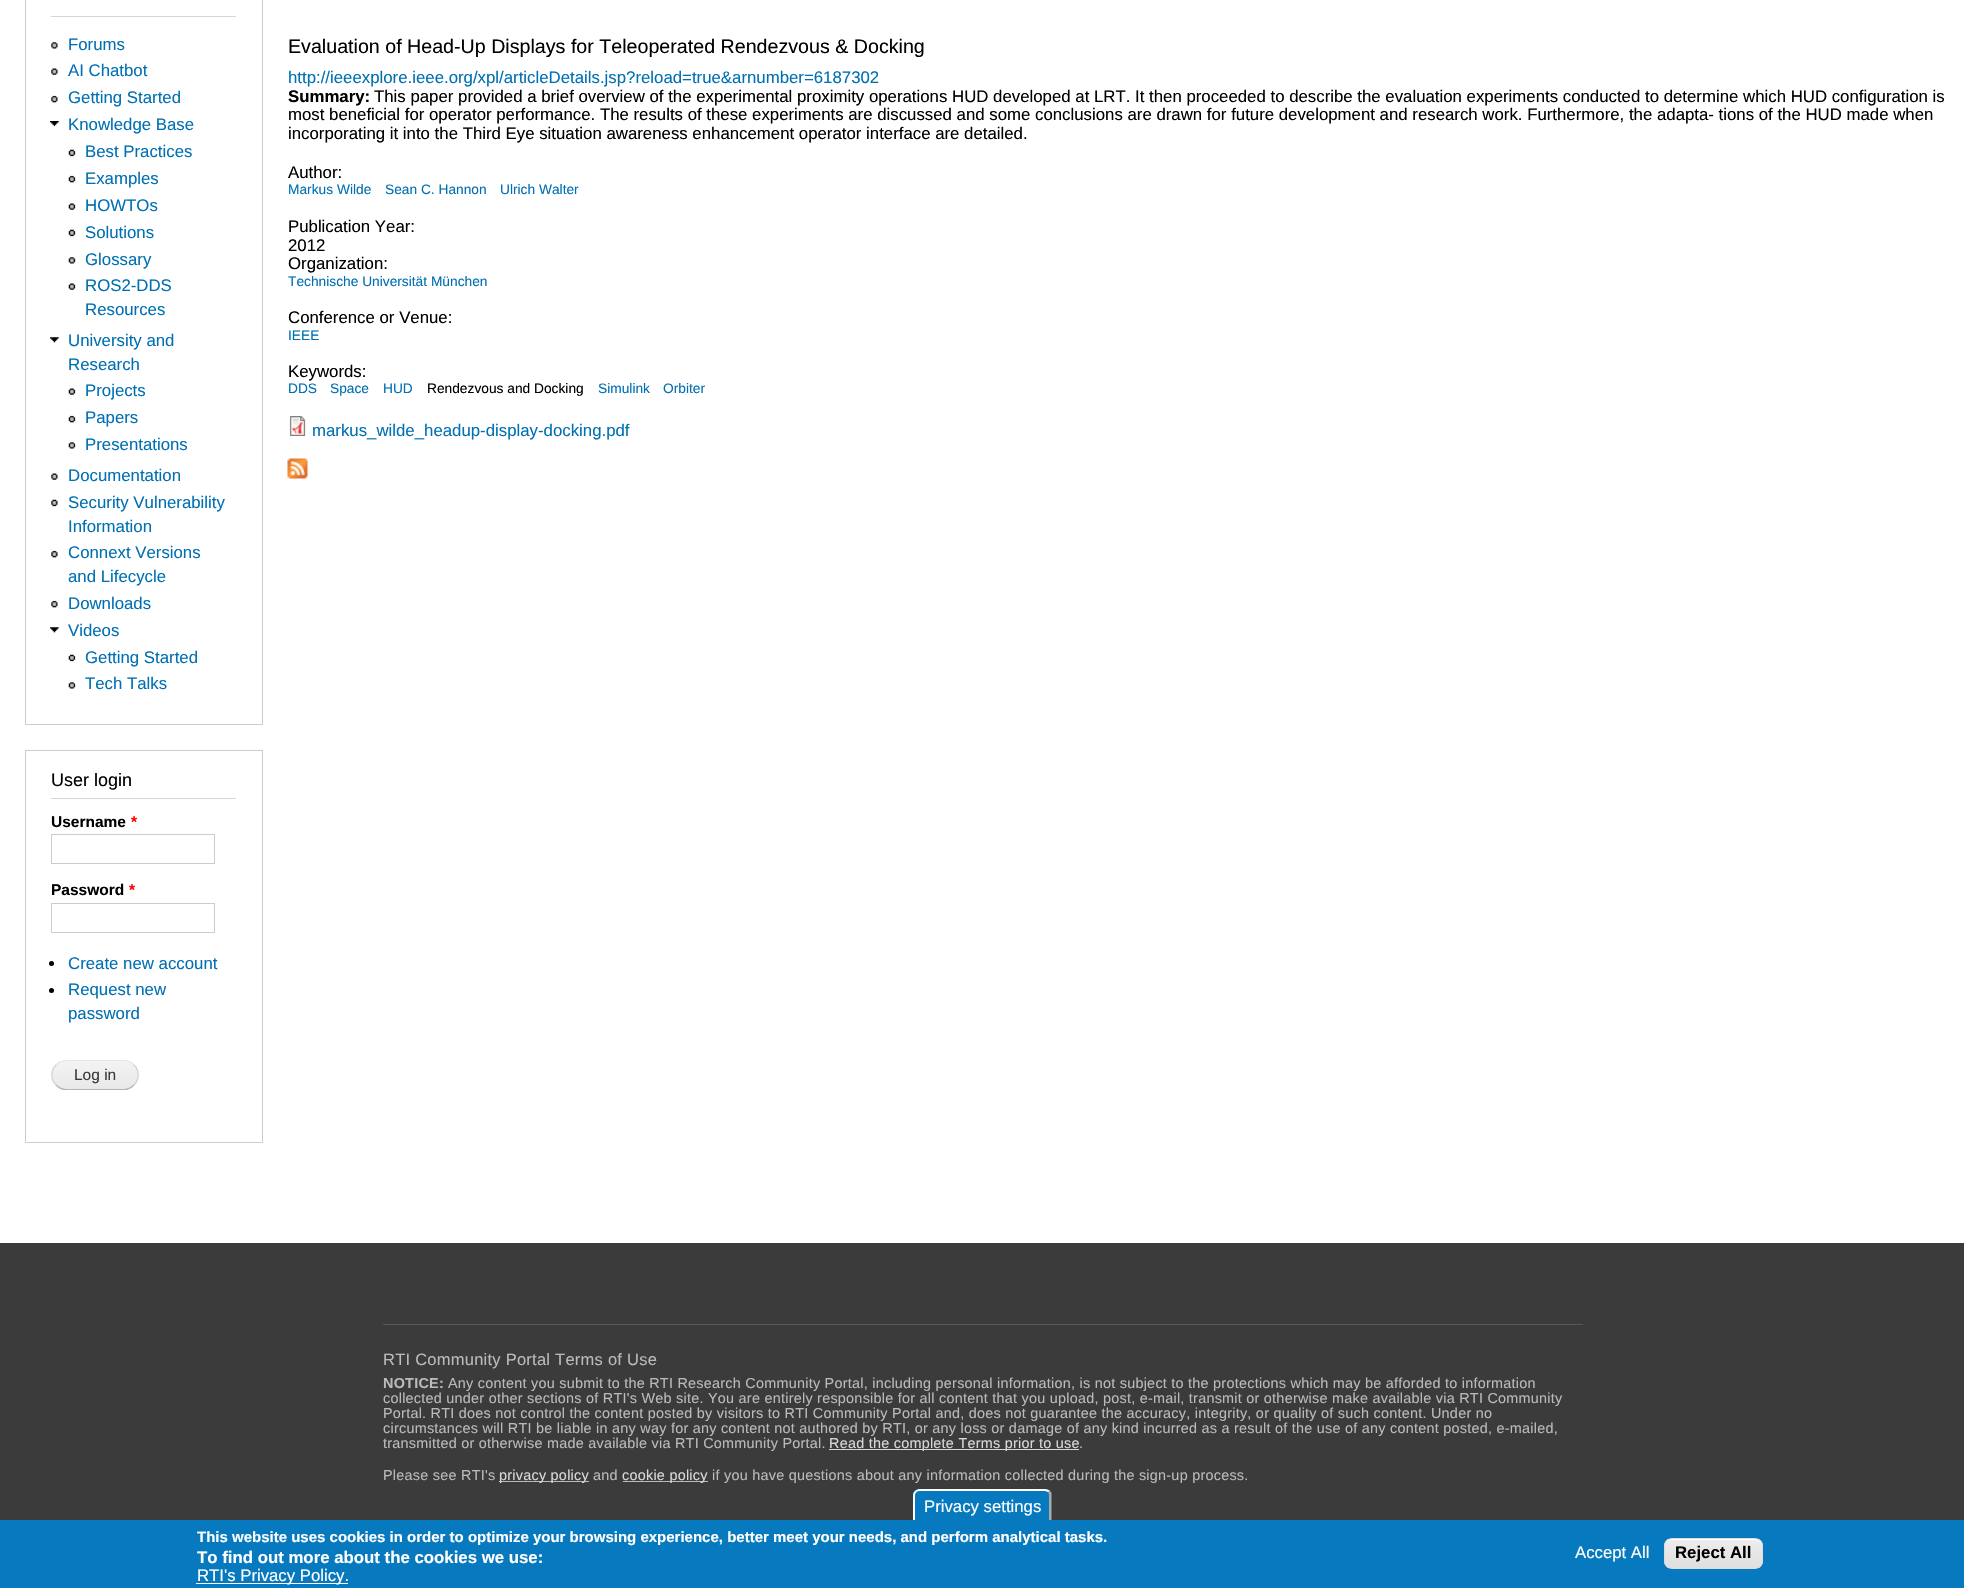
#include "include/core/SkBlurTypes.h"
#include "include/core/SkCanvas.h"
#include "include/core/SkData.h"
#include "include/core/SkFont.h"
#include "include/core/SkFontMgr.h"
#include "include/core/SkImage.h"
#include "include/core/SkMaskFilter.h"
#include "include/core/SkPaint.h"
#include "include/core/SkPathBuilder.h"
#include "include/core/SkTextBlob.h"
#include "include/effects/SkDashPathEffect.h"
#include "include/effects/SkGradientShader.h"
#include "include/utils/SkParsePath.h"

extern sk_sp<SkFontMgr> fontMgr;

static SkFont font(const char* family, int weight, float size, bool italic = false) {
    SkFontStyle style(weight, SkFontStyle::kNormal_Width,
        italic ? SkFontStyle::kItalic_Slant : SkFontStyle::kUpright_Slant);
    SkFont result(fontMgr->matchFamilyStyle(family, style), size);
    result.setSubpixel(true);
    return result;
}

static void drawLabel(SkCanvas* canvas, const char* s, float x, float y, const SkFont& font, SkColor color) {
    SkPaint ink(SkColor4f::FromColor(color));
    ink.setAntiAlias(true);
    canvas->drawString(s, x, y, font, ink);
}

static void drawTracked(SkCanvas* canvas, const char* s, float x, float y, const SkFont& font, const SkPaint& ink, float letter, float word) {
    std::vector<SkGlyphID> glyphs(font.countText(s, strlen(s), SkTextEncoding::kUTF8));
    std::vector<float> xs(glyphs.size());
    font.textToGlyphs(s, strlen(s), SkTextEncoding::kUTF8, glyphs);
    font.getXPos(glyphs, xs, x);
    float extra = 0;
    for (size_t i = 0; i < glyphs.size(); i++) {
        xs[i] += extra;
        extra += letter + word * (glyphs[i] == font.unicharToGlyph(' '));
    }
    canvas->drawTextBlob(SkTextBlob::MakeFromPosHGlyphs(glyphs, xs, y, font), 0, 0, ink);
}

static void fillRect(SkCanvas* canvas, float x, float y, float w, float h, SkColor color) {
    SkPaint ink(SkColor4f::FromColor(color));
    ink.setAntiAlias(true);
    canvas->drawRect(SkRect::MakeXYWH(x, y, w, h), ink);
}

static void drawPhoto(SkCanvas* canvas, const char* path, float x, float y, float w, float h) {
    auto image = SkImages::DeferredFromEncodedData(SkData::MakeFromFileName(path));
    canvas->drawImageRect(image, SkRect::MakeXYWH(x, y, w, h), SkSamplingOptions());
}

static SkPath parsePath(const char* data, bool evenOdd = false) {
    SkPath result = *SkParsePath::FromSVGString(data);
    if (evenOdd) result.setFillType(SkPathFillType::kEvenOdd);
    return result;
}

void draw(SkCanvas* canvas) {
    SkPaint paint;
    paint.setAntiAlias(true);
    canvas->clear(0xFFFFFFFF);
    paint.setStroke(true);
    paint.setStrokeWidth(1);
    paint.setColor(0xFFCCCCCC);
    canvas->drawRect(SkRect::MakeXYWH(25.5f, -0.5f, 237, 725), paint);
    fillRect(canvas, 51, 16, 185, 1, 0xFFD6D6D6);
    drawPhoto(canvas, "assets/img1.png", 51, 42, 7, 7);
    SkFont font1 = font("Liberation Sans", 400, 16.8f);
    drawLabel(canvas, "Forums", 68, 50, font1, 0xFF0070B3);
    drawPhoto(canvas, "assets/img2.png", 51, 68, 7, 7);
    drawLabel(canvas, "AI Chatbot", 68, 76, font1, 0xFF0070B3);
    drawPhoto(canvas, "assets/img3.png", 51, 95, 7, 8);
    drawLabel(canvas, "Getting Started", 68, 103, font1, 0xFF0070B3);
    drawPhoto(canvas, "assets/img4.png", 50, 121, 9, 6);
    drawLabel(canvas, "Knowledge Base", 68, 130, font1, 0xFF0070B3);
    drawPhoto(canvas, "assets/img5.png", 68, 149, 8, 8);
    drawLabel(canvas, "Best Practices", 85, 157, font1, 0xFF0070B3);
    drawPhoto(canvas, "assets/img6.png", 68, 175, 8, 8);
    drawLabel(canvas, "Examples", 85, 184, font1, 0xFF0070B3);
    drawPhoto(canvas, "assets/img7.png", 68, 203, 8, 7);
    drawLabel(canvas, "HOWTOs", 85, 211, font1, 0xFF0070B3);
    drawPhoto(canvas, "assets/img5.png", 68, 229, 8, 8);
    drawLabel(canvas, "Solutions", 85, 238, font1, 0xFF0070B3);
    drawPhoto(canvas, "assets/img8.png", 68, 257, 8, 7);
    drawLabel(canvas, "Glossary", 85, 265, font1, 0xFF0070B3);
    drawPhoto(canvas, "assets/img7.png", 68, 283, 8, 7);
    drawLabel(canvas, "ROS2-DDS", 85, 291, font1, 0xFF0070B3);
    drawLabel(canvas, "Resources", 85, 315, font1, 0xFF0070B3);
    drawPhoto(canvas, "assets/img9.png", 50, 337, 9, 6);
    drawLabel(canvas, "University and", 68, 346, font1, 0xFF0070B3);
    drawLabel(canvas, "Research", 68, 370, font1, 0xFF0070B3);
    drawPhoto(canvas, "assets/img7.png", 68, 388, 8, 7);
    drawLabel(canvas, "Projects", 85, 396, font1, 0xFF0070B3);
    drawPhoto(canvas, "assets/img6.png", 68, 415, 8, 8);
    drawLabel(canvas, "Papers", 85, 423, font1, 0xFF0070B3);
    drawPhoto(canvas, "assets/img8.png", 68, 442, 8, 7);
    drawLabel(canvas, "Presentations", 85, 450, font1, 0xFF0070B3);
    drawPhoto(canvas, "assets/img2.png", 51, 473, 7, 7);
    drawLabel(canvas, "Documentation", 68, 481, font1, 0xFF0070B3);
    drawPhoto(canvas, "assets/img10.png", 51, 499, 7, 8);
    drawLabel(canvas, "Security Vulnerability", 68, 508, font1, 0xFF0070B3);
    drawLabel(canvas, "Information", 68, 532, font1, 0xFF0070B3);
    drawPhoto(canvas, "assets/img3.png", 51, 550, 7, 8);
    drawLabel(canvas, "Connext Versions", 68, 558, font1, 0xFF0070B3);
    drawLabel(canvas, "and Lifecycle", 68, 582, font1, 0xFF0070B3);
    drawPhoto(canvas, "assets/img3.png", 51, 600, 7, 8);
    drawLabel(canvas, "Downloads", 68, 609, font1, 0xFF0070B3);
    drawPhoto(canvas, "assets/img9.png", 50, 627, 9, 6);
    drawLabel(canvas, "Videos", 68, 636, font1, 0xFF0070B3);
    drawPhoto(canvas, "assets/img5.png", 68, 654, 8, 8);
    drawLabel(canvas, "Getting Started", 85, 663, font1, 0xFF0070B3);
    drawPhoto(canvas, "assets/img8.png", 68, 682, 8, 7);
    drawLabel(canvas, "Tech Talks", 85, 689, font1, 0xFF0070B3);
    canvas->drawRect(SkRect::MakeXYWH(25.5f, 750.5f, 237, 392), paint);
    fillRect(canvas, 51, 798, 185, 1, 0xFFD6D6D6);
    SkFont font2 = font("Liberation Sans", 400, 18);
    drawLabel(canvas, "User login", 51, 786, font2, 0xFF000000);
    SkFont font3 = font("Liberation Sans", 700, 15.5f);
    drawLabel(canvas, "Username", 51, 827, font3, 0xFF000000);
    drawLabel(canvas, "*", 131, 827, font3, 0xFFFF0000);
    canvas->drawRect(SkRect::MakeXYWH(51.5f, 834.5f, 163, 29), paint);
    drawLabel(canvas, "Password", 51, 895, font3, 0xFF000000);
    drawLabel(canvas, "*", 129, 895, font3, 0xFFFF0000);
    canvas->drawRect(SkRect::MakeXYWH(51.5f, 903.5f, 163, 29), paint);
    paint.setStroke(false);
    paint.setColor(0xFF000000);
    canvas->drawCircle(51.5f, 963.5f, 2.5f, paint);
    drawLabel(canvas, "Create new account", 68, 969, font1, 0xFF0070B3);
    canvas->drawCircle(51.5f, 990.5f, 2.5f, paint);
    drawLabel(canvas, "Request new", 68, 995, font1, 0xFF0070B3);
    drawLabel(canvas, "password", 68, 1019, font1, 0xFF0070B3);
    drawPhoto(canvas, "assets/img11.png", 51, 1061, 88, 29);
    paint.setStroke(true);
    paint.setStrokeWidth(1.2f);
    paint.setColor(0xFFE4E4E4);
    canvas->drawPath(parsePath("M56 1065C59 1062 62.5 1060.5 66 1060.5H124C127.5 1060.5 131 1062 134 1065"), paint);
    paint.setColor(0xFFD2D2D2);
    canvas->drawPath(parsePath("M134 1065C139.5 1070.5 139.5 1079.5 134 1085"), paint);
    paint.setColor(0xFFB4B4B4);
    canvas->drawPath(parsePath("M134 1085C131 1088 127.5 1089.5 124 1089.5H66C62.5 1089.5 59 1088 56 1085"), paint);
    paint.setColor(0xFFD2D2D2);
    canvas->drawPath(parsePath("M56 1085C50.5 1079.5 50.5 1070.5 56 1065"), paint);
    SkFont font4 = font("Liberation Sans", 400, 15.5f);
    drawLabel(canvas, "Log in", 74, 1080, font4, 0xFF3A3A3A);
    SkFont font5 = font("Liberation Sans", 400, 19.65f);
    drawLabel(canvas, "Evaluation of Head-Up Displays for Teleoperated Rendezvous & Docking", 288, 53, font5, 0xFF000000);
    drawLabel(canvas, "http://ieeexplore.ieee.org/xpl/articleDetails.jsp?reload=true&arnumber=6187302", 288, 83, font1, 0xFF0070B3);
    SkFont font6 = font("Liberation Sans", 700, 16.8f);
    drawLabel(canvas, "Summary:", 288, 102, font6, 0xFF000000);
    drawLabel(canvas, "This paper provided a brief overview of the experimental proximity operations HUD developed at LRT. It then proceeded to describe the evaluation experiments conducted to determine which HUD configuration is", 374, 102, font1, 0xFF000000);
    drawLabel(canvas, "most beneficial for operator performance. The results of these experiments are discussed and some conclusions are drawn for future development and research work. Furthermore, the adapta- tions of the HUD made when", 288, 120, font1, 0xFF000000);
    drawLabel(canvas, "incorporating it into the Third Eye situation awareness enhancement operator interface are detailed.", 288, 139, font1, 0xFF000000);
    drawLabel(canvas, "Author:", 288, 178, font1, 0xFF000000);
    SkFont font7 = font("Liberation Sans", 400, 13.75f);
    drawLabel(canvas, "Markus Wilde", 288, 194, font7, 0xFF0070B3);
    drawLabel(canvas, "Sean C. Hannon", 385, 194, font7, 0xFF0070B3);
    drawLabel(canvas, "Ulrich Walter", 500, 194, font7, 0xFF0070B3);
    drawLabel(canvas, "Publication Year:", 288, 232, font1, 0xFF000000);
    drawLabel(canvas, "2012", 288, 251, font1, 0xFF000000);
    drawLabel(canvas, "Organization:", 288, 269, font1, 0xFF000000);
    drawLabel(canvas, "Technische Universität München", 288, 286, font7, 0xFF0070B3);
    drawLabel(canvas, "Conference or Venue:", 288, 323, font1, 0xFF000000);
    drawLabel(canvas, "IEEE", 288, 340, font7, 0xFF0070B3);
    drawLabel(canvas, "Keywords:", 288, 377, font1, 0xFF000000);
    drawLabel(canvas, "DDS", 288, 393, font7, 0xFF0070B3);
    drawLabel(canvas, "Space", 330, 393, font7, 0xFF0070B3);
    drawLabel(canvas, "HUD", 383, 393, font7, 0xFF0070B3);
    drawLabel(canvas, "Rendezvous and Docking", 427, 393, font7, 0xFF000000);
    drawLabel(canvas, "Simulink", 598, 393, font7, 0xFF0070B3);
    drawLabel(canvas, "Orbiter", 663, 393, font7, 0xFF0070B3);
    drawPhoto(canvas, "assets/img12.png", 289, 416, 17, 20);
    drawLabel(canvas, "markus_wilde_headup-display-docking.pdf", 312, 436, font1, 0xFF0070B3);
    drawPhoto(canvas, "assets/img13.png", 287, 458, 21, 21);
    fillRect(canvas, 0, 1243, 1964, 277, 0xFF3B3B3B);
    fillRect(canvas, 383, 1324, 1200, 1, 0xFF585858);
    SkFont font8 = font("Liberation Sans", 400, 16.5f);
    paint.setStroke(false);
    paint.setColor(0xFFBABABA);
    drawTracked(canvas, "RTI Community Portal Terms of Use", 383, 1365, font8, paint, 0.25f, 0);
    SkFont font9 = font("Liberation Sans", 700, 14.4f);
    drawTracked(canvas, "NOTICE:", 383, 1388, font9, paint, 0.25f, 0);
    SkFont font10 = font("Liberation Sans", 400, 14.4f);
    drawTracked(canvas, "Any content you submit to the RTI Research Community Portal, including personal information, is not subject to the protections which may be afforded to information", 448, 1388, font10, paint, 0.25f, 0);
    drawTracked(canvas, "collected under other sections of RTI's Web site. You are entirely responsible for all content that you upload, post, e-mail, transmit or otherwise make available via RTI Community", 383, 1403, font10, paint, 0.25f, 0);
    drawTracked(canvas, "Portal. RTI does not control the content posted by visitors to RTI Community Portal and, does not guarantee the accuracy, integrity, or quality of such content. Under no", 383, 1418, font10, paint, 0.25f, 0);
    drawTracked(canvas, "circumstances will RTI be liable in any way for any content not authored by RTI, or any loss or damage of any kind incurred as a result of the use of any content posted, e-mailed,", 383, 1433, font10, paint, 0.25f, 0);
    drawTracked(canvas, "transmitted or otherwise made available via RTI Community Portal.", 383, 1448, font10, paint, 0.25f, 0);
    fillRect(canvas, 829, 1449, 250, 1, 0xFFD8D8D8);
    paint.setColor(0xFFD8D8D8);
    drawTracked(canvas, "Read the complete Terms prior to use", 829, 1448, font10, paint, 0.25f, 0);
    paint.setColor(0xFFBABABA);
    drawTracked(canvas, ".", 1079, 1448, font10, paint, 0.25f, 0);
    drawTracked(canvas, "Please see RTI's", 383, 1480, font10, paint, 0.25f, 0);
    fillRect(canvas, 499, 1481, 90, 1, 0xFFBABABA);
    paint.setColor(0xFFD8D8D8);
    drawTracked(canvas, "privacy policy", 499, 1480, font10, paint, 0.25f, 0);
    paint.setColor(0xFFBABABA);
    drawTracked(canvas, "and", 593, 1480, font10, paint, 0.25f, 0);
    fillRect(canvas, 623, 1481, 85, 1, 0xFFBABABA);
    paint.setColor(0xFFD8D8D8);
    drawTracked(canvas, "cookie policy", 622, 1480, font10, paint, 0.25f, 0);
    paint.setColor(0xFFBABABA);
    drawTracked(canvas, "if you have questions about any information collected during the sign-up process.", 712, 1480, font10, paint, 0.25f, 0);
    fillRect(canvas, 0, 1520, 1964, 68, 0xFF0779BF);
    paint.setColor(0xFF0779BF);
    canvas->drawPath(parsePath("M919 1489H1045C1048.5 1489 1051 1491.5 1051 1495V1520H913V1495C913 1491.5 915.5 1489 919 1489Z"), paint);
    paint.setColor(0xFFFFFFFF);
    canvas->drawPath(parsePath("M919 1489H1045C1047 1489 1049 1490 1050 1491L1048 1492L1045 1491H919L916 1492L915 1491C916 1490 918 1489 919 1489Z"), paint);
    paint.setColor(0xFFAAAAAA);
    canvas->drawPath(parsePath("M1049.5 1490.5C1050.5 1491.5 1051.5 1492.5 1051.5 1493V1520H1049V1495C1049 1494 1048.5 1493 1048 1492.5Z"), paint);
    paint.setColor(0xFFFFFFFF);
    canvas->drawPath(parsePath("M913 1520H915V1495C915 1494 915.5 1493 916.5 1492L915 1491C914 1492 913 1493.5 913 1495Z"), paint);
    SkFont font11 = font("Liberation Sans", 400, 16.75f);
    drawLabel(canvas, "Privacy settings", 924, 1512, font11, 0xFFFFFFFF);
    SkFont font12 = font("Liberation Sans", 700, 15);
    drawLabel(canvas, "This website uses cookies in order to optimize your browsing experience, better meet your needs, and perform analytical tasks.", 197, 1542, font12, 0xFFFFFFFF);
    drawLabel(canvas, "To find out more about the cookies we use:", 197, 1563, font6, 0xFFFFFFFF);
    fillRect(canvas, 196, 1583, 152, 1, 0xFFFFFFFF);
    drawLabel(canvas, "RTI's Privacy Policy.", 197, 1581, font11, 0xFFFFFFFF);
    drawLabel(canvas, "Accept All", 1575, 1558, font11, 0xFFFFFFFF);
    canvas->save();
    canvas->clipPath(parsePath("M1672 1538H1755C1759.5 1538 1763 1541.5 1763 1546V1561C1763 1565.5 1759.5 1569 1755 1569H1672C1667.5 1569 1664 1565.5 1664 1561V1546C1664 1541.5 1667.5 1538 1672 1538Z"), true);
    {
        const SkColor colors[] = {0xFFEDEDED, 0xFFDFDFDF};
        const float stops[] = {0.05f, 1};
        const SkPoint ends[] = {{1713, 1539}, {1713, 1568}};
        paint.setShader(SkGradientShader::MakeLinear(ends, colors, stops, 2, SkTileMode::kClamp));
        paint.setAlpha(255);
    }
    canvas->drawRect(SkRect::MakeXYWH(1664, 1539, 99, 29), paint);
    canvas->restore();
    paint.setShader(nullptr);
    paint.setColor(0xFFFFFFFF);
    canvas->drawPath(parsePath("M1671 1540H1755C1758 1540 1761 1543 1761 1546C1761 1536 1747 1539 1741 1539H1685C1679 1539 1665 1536 1665 1546C1665 1543 1668 1540 1671 1540Z"), paint);
    paint.setStroke(true);
    paint.setStrokeWidth(1);
    paint.setColor(0xFFDCDCDC);
    canvas->drawRoundRect(SkRect::MakeXYWH(1664.5f, 1538.5f, 98, 30), 7.5f, 7.5f, paint);
    SkFont font13 = font("Liberation Sans", 700, 16.75f);
    drawLabel(canvas, "Reject All", 1675, 1558, font13, 0xFF000000);
}
